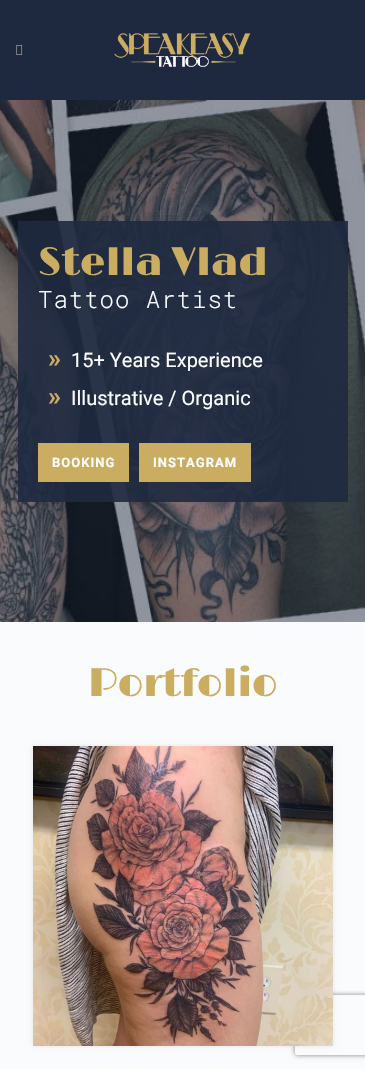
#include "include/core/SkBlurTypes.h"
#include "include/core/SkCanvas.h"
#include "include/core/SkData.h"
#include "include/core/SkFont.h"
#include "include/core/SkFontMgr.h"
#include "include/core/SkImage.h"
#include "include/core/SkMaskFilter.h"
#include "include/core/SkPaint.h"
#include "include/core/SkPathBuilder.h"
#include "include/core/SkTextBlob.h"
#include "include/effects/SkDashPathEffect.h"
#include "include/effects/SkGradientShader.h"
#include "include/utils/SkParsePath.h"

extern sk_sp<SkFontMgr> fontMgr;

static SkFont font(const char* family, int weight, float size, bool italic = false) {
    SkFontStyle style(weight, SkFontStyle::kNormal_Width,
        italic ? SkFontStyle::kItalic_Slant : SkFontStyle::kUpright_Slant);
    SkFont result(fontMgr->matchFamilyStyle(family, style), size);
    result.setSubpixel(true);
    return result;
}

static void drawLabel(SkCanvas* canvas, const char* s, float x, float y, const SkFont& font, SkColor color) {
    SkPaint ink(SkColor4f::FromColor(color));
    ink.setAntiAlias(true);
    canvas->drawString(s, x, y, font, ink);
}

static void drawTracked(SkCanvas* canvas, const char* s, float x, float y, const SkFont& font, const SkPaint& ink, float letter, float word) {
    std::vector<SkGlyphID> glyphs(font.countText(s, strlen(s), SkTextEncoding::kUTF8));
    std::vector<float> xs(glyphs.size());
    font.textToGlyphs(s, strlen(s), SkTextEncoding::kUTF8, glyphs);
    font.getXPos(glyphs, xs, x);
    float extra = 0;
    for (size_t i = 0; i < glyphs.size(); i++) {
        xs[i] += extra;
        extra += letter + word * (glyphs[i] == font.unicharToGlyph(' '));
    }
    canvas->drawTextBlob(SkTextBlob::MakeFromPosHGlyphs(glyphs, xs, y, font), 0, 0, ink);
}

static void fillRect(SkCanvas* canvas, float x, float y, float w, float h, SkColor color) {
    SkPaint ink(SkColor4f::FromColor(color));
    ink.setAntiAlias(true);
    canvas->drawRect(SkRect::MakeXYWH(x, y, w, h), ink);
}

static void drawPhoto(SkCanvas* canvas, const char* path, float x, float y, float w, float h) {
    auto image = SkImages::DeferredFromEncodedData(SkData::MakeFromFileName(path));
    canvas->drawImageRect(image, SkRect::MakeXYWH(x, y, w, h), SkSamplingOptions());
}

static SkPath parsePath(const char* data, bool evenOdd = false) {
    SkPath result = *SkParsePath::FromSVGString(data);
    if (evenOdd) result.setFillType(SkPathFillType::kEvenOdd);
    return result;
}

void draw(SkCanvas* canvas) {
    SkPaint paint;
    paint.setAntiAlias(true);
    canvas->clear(0xFFFAFBFC);
    fillRect(canvas, 0, 0, 365, 100, 0xFF1E293F);
    drawPhoto(canvas, "assets/img1.png", 16, 45, 7, 10);
    drawPhoto(canvas, "assets/img2.png", 114, 33, 137, 34);
    drawPhoto(canvas, "assets/img3.png", 0, 100, 365, 522);
    fillRect(canvas, 18, 221, 330, 281, 0xE61E293F);
    SkFont font1 = font("Limelight", 300, 40);
    drawLabel(canvas, "Stella Vlad", 38, 275, font1, 0xFFCBAD61);
    SkFont font2 = font("Roboto Mono", 300, 24);
    paint.setColor(0xFFFFFFFF);
    drawTracked(canvas, "Tattoo Artist", 38, 308, font2, paint, 1, 0);
    SkFont font3 = font("Roboto", 700, 26);
    drawLabel(canvas, "»", 48, 367, font3, 0xFFCBAD61);
    SkFont font4 = font("Roboto", 400, 20);
    drawLabel(canvas, "15+ Years Experience", 71, 367, font4, 0xFFFFFFFF);
    drawLabel(canvas, "»", 48, 405, font3, 0xFFCBAD61);
    drawLabel(canvas, "Illustrative / Organic", 71, 405, font4, 0xFFFFFFFF);
    fillRect(canvas, 38, 443, 91, 39, 0xFFCBAD61);
    SkFont font5 = font("Roboto", 700, 13);
    drawTracked(canvas, "BOOKING", 52, 467, font5, paint, 1, 0);
    fillRect(canvas, 139, 443, 112, 39, 0xFFCBAD61);
    drawTracked(canvas, "INSTAGRAM", 153, 467, font5, paint, 1, 0);
    drawLabel(canvas, "Portfolio", 88, 696, font1, 0xFFCBAD61);
    paint.setColor(0x17000000);
    paint.setMaskFilter(SkMaskFilter::MakeBlur(kNormal_SkBlurStyle, 2.5f));
    canvas->drawRect(SkRect::MakeXYWH(33, 746, 300, 300), paint);
    paint.setMaskFilter(nullptr);
    canvas->save();
    canvas->clipPath(parsePath("M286 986H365V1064H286ZM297 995H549C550 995 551 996 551 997V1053C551 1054 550 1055 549 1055H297C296 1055 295 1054 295 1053V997C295 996 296 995 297 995Z", true), true);
    paint.setColor(0xFF808080);
    paint.setMaskFilter(SkMaskFilter::MakeBlur(kNormal_SkBlurStyle, 2.5f));
    canvas->drawRoundRect(SkRect::MakeXYWH(295, 995, 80, 60), 2, 2, paint);
    paint.setMaskFilter(nullptr);
    canvas->restore();
    drawPhoto(canvas, "assets/img4.png", 33, 746, 300, 300);
}
